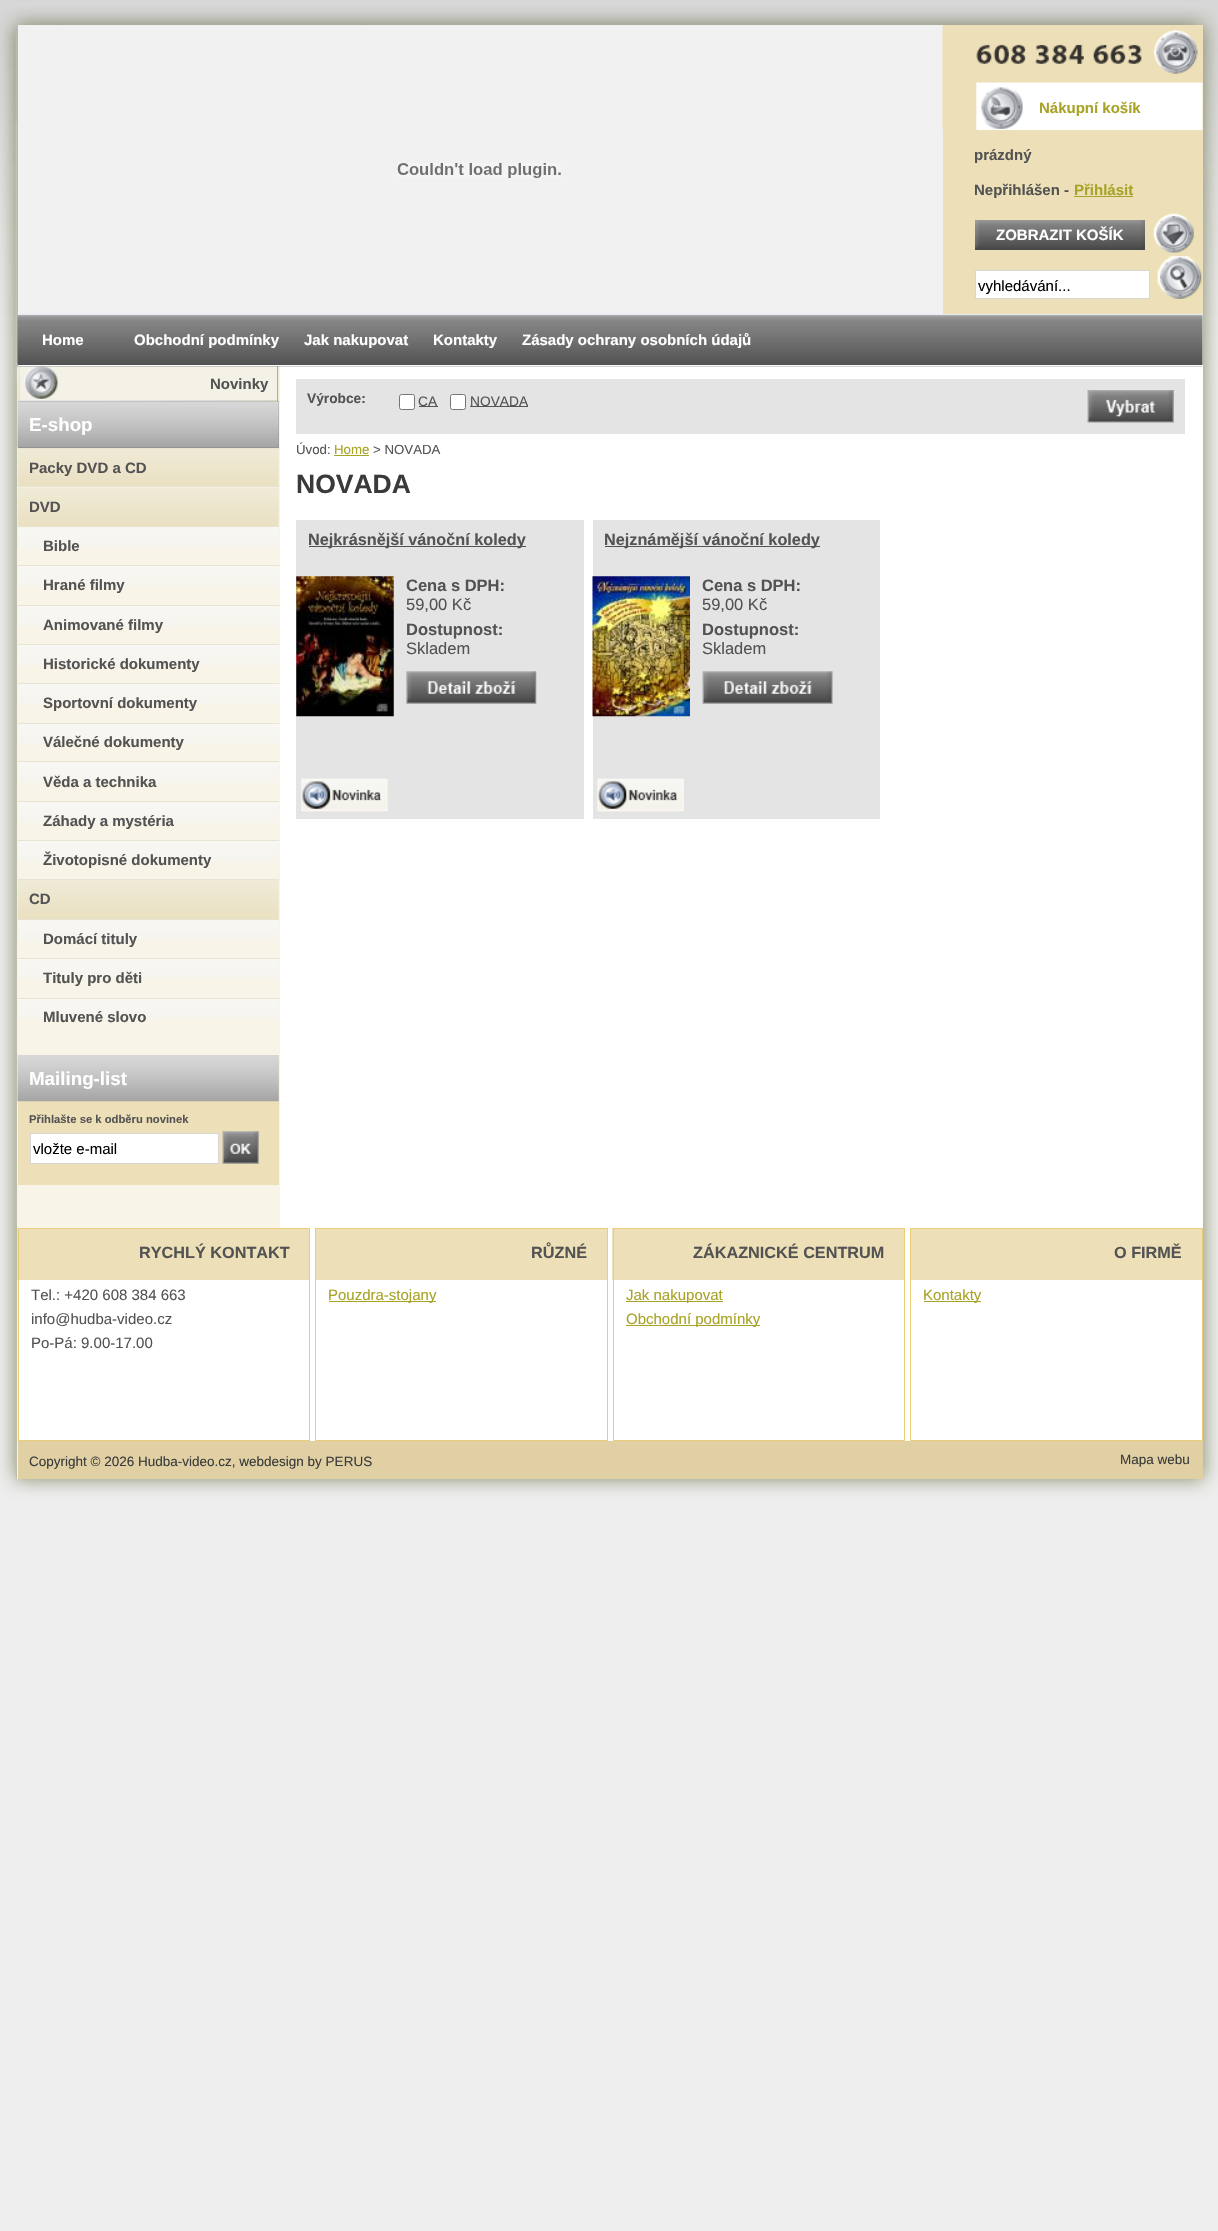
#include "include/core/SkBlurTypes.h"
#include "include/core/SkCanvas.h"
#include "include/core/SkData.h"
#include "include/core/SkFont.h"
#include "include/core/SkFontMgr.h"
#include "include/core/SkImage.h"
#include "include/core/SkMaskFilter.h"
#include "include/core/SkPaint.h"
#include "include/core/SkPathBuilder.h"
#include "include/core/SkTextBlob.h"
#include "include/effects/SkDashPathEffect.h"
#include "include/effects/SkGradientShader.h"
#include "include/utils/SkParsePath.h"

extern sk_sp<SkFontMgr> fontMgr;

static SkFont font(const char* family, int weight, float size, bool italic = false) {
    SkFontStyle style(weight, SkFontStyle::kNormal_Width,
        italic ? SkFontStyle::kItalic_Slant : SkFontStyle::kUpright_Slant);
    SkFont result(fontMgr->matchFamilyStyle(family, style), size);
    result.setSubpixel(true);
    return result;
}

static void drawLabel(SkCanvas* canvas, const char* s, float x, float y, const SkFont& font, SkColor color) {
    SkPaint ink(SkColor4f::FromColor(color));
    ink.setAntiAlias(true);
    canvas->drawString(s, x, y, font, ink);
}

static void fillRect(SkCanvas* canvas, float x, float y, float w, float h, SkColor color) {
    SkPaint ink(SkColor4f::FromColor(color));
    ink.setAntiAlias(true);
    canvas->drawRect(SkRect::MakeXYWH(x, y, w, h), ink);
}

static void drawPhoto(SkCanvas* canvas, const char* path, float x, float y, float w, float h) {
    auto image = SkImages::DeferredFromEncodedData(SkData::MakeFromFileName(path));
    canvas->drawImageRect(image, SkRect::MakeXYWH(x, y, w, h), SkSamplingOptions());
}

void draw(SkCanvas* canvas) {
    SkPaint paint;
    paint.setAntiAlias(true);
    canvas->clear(0xFFEEEEEE);
    drawPhoto(canvas, "assets/img1.png", 0, 380, 1218, 955);
    drawPhoto(canvas, "assets/img2.png", 0, 0, 1218, 380);
    drawPhoto(canvas, "assets/img3.png", 0, 1335, 1218, 170);
    fillRect(canvas, 280, 364, 923, 1077, 0xFFFFFFFF);
    fillRect(canvas, 17, 363, 263, 1116, 0xFFF8F4E8);
    fillRect(canvas, 18, 25, 1185, 339, 0xFFF1F1F1);
    drawPhoto(canvas, "assets/img4.png", 397, 163, 164, 15);
    fillRect(canvas, 943, 25, 260, 289, 0xFFEDDFB7);
    drawPhoto(canvas, "assets/img5.png", 942, 25, 261, 105);
    SkFont font1 = font("Liberation Sans", 700, 15);
    drawLabel(canvas, "Nákupní košík", 1039, 113, font1, 0xFFA8A326);
    drawLabel(canvas, "prázdný", 974, 160, font1, 0xFF535353);
    drawLabel(canvas, "Nepřihlášen -", 974, 195, font1, 0xFF535353);
    drawLabel(canvas, "Přihlásit", 1074, 195, font1, 0xFFA8A326);
    fillRect(canvas, 1074, 196, 59, 1, 0xFFA8A326);
    drawPhoto(canvas, "assets/img6.png", 975, 220, 170, 30);
    drawLabel(canvas, "ZOBRAZIT KOŠÍK", 996, 240, font1, 0xFFFFFFFF);
    drawPhoto(canvas, "assets/img7.png", 1153, 213, 41, 40);
    paint.setColor(0xFFFFFFFF);
    canvas->drawRect(SkRect::MakeXYWH(975.5f, 270.5f, 174, 28), paint);
    paint.setStroke(true);
    paint.setStrokeWidth(1);
    paint.setColor(0xFFD6D6D6);
    canvas->drawRect(SkRect::MakeXYWH(975.5f, 270.5f, 174, 28), paint);
    SkFont font2 = font("Liberation Sans", 400, 15);
    drawLabel(canvas, "vyhledávání...", 978, 291, font2, 0xFF000000);
    drawPhoto(canvas, "assets/img8.png", 1157, 256, 45, 43);
    drawPhoto(canvas, "assets/img10.png", 17, 365, 262, 37);
    fillRect(canvas, 277, 366, 1, 35, 0xFF646464);
    drawPhoto(canvas, "assets/img11.png", 18, 366, 260, 35);
    drawPhoto(canvas, "assets/img9.png", 17, 315, 1186, 52);
    fillRect(canvas, 18, 314, 1185, 1, 0xFFE4EAF5);
    fillRect(canvas, 18, 365, 1185, 1, 0xFFFAF9FC);
    drawLabel(canvas, "Home", 42, 345, font1, 0xFFFFFFFF);
    drawLabel(canvas, "Obchodní podmínky", 134, 345, font1, 0xFFFFFFFF);
    drawLabel(canvas, "Jak nakupovat", 304, 345, font1, 0xFFFFFFFF);
    drawLabel(canvas, "Kontakty", 433, 345, font1, 0xFFFFFFFF);
    drawLabel(canvas, "Zásady ochrany osobních údajů", 522, 345, font1, 0xFFFFFFFF);
    drawLabel(canvas, "Novinky", 210, 389, font1, 0xFF535353);
    fillRect(canvas, 18, 401, 261, 47, 0xFF828282);
    drawPhoto(canvas, "assets/img12.png", 17, 401, 262, 47);
    SkFont font3 = font("Liberation Sans", 700, 18.75f);
    drawLabel(canvas, "E-shop", 29, 431, font3, 0xFFFFFFFF);
    drawPhoto(canvas, "assets/img13.png", 17, 448, 262, 39);
    fillRect(canvas, 18, 448, 261, 1, 0xFFE7E5D2);
    drawLabel(canvas, "Packy DVD a CD", 29, 473, font1, 0xFF535353);
    drawPhoto(canvas, "assets/img14.png", 17, 487, 262, 62);
    fillRect(canvas, 18, 486, 261, 1, 0xFFE7E5D2);
    drawLabel(canvas, "DVD", 29, 512, font1, 0xFF535353);
    fillRect(canvas, 18, 527, 261, 22, 0xFFF8F4E8);
    drawPhoto(canvas, "assets/img15.png", 17, 527, 262, 22);
    fillRect(canvas, 18, 526, 261, 1, 0xFFE7E5D2);
    drawLabel(canvas, "Bible", 43, 551, font1, 0xFF535353);
    drawPhoto(canvas, "assets/img16.png", 17, 566, 262, 21);
    fillRect(canvas, 18, 565, 261, 1, 0xFFE7E5D2);
    drawLabel(canvas, "Hrané filmy", 43, 590, font1, 0xFF535353);
    drawPhoto(canvas, "assets/img16.png", 17, 606, 262, 21);
    fillRect(canvas, 18, 605, 261, 1, 0xFFE7E5D2);
    drawLabel(canvas, "Animované filmy", 43, 630, font1, 0xFF535353);
    drawPhoto(canvas, "assets/img17.png", 17, 645, 262, 21);
    fillRect(canvas, 18, 644, 261, 1, 0xFFE7E5D2);
    drawLabel(canvas, "Historické dokumenty", 43, 669, font1, 0xFF535353);
    drawPhoto(canvas, "assets/img18.png", 17, 684, 262, 20);
    fillRect(canvas, 18, 683, 261, 1, 0xFFE7E5D2);
    drawLabel(canvas, "Sportovní dokumenty", 43, 708, font1, 0xFF535353);
    drawPhoto(canvas, "assets/img18.png", 17, 724, 262, 20);
    fillRect(canvas, 18, 723, 261, 1, 0xFFE7E5D2);
    drawLabel(canvas, "Válečné dokumenty", 43, 747, font1, 0xFF535353);
    drawPhoto(canvas, "assets/img19.png", 17, 762, 262, 21);
    fillRect(canvas, 18, 761, 261, 1, 0xFFE7E5D2);
    drawLabel(canvas, "Věda a technika", 43, 787, font1, 0xFF535353);
    drawPhoto(canvas, "assets/img19.png", 17, 802, 262, 21);
    fillRect(canvas, 18, 801, 261, 1, 0xFFE7E5D2);
    drawLabel(canvas, "Záhady a mystéria", 43, 826, font1, 0xFF535353);
    drawPhoto(canvas, "assets/img16.png", 17, 841, 262, 21);
    fillRect(canvas, 18, 840, 261, 1, 0xFFE7E5D2);
    drawLabel(canvas, "Životopisné dokumenty", 43, 865, font1, 0xFF535353);
    drawPhoto(canvas, "assets/img20.png", 17, 880, 262, 62);
    fillRect(canvas, 18, 879, 261, 1, 0xFFE7E5D2);
    drawLabel(canvas, "CD", 29, 904, font1, 0xFF535353);
    fillRect(canvas, 18, 920, 261, 22, 0xFFF8F4E8);
    drawPhoto(canvas, "assets/img21.png", 17, 920, 262, 22);
    fillRect(canvas, 18, 919, 261, 1, 0xFFE7E5D2);
    drawLabel(canvas, "Domácí tituly", 43, 944, font1, 0xFF535353);
    drawPhoto(canvas, "assets/img18.png", 17, 959, 262, 20);
    fillRect(canvas, 18, 958, 261, 1, 0xFFE7E5D2);
    drawLabel(canvas, "Tituly pro děti", 43, 983, font1, 0xFF535353);
    drawPhoto(canvas, "assets/img18.png", 17, 999, 262, 20);
    fillRect(canvas, 18, 998, 261, 1, 0xFFE7E5D2);
    drawLabel(canvas, "Mluvené slovo", 43, 1022, font1, 0xFF535353);
    fillRect(canvas, 18, 1055, 261, 130, 0xFFEDDFB7);
    drawPhoto(canvas, "assets/img22.png", 17, 1055, 262, 47);
    drawLabel(canvas, "Mailing-list", 29, 1085, font3, 0xFFFFFFFF);
    SkFont font4 = font("Liberation Sans", 700, 11.25f);
    drawLabel(canvas, "Přihlašte se k odběru novinek", 29, 1123, font4, 0xFF535353);
    paint.setStroke(false);
    paint.setColor(0xFFFFFFFF);
    canvas->drawRect(SkRect::MakeXYWH(30.5f, 1133.5f, 188, 30), paint);
    paint.setStroke(true);
    paint.setColor(0xFFD6D6D6);
    canvas->drawRect(SkRect::MakeXYWH(30.5f, 1133.5f, 188, 30), paint);
    drawLabel(canvas, "vložte e-mail", 33, 1154, font2, 0xFF000000);
    drawPhoto(canvas, "assets/img23.png", 222, 1131, 37, 33);
    fillRect(canvas, 296, 379, 889, 55, 0xFFE4E4E4);
    SkFont font5 = font("Liberation Sans", 700, 13.75f);
    drawLabel(canvas, "Výrobce:", 307, 403, font5, 0xFF535353);
    paint.setStroke(false);
    paint.setColor(0xFFFFFFFF);
    canvas->drawRoundRect(SkRect::MakeXYWH(399.5f, 394.5f, 15, 15), 2, 2, paint);
    paint.setStroke(true);
    paint.setColor(0xFF767676);
    canvas->drawRoundRect(SkRect::MakeXYWH(399.5f, 394.5f, 15, 15), 2, 2, paint);
    fillRect(canvas, 419, 406, 19, 1, 0xFF535353);
    SkFont font6 = font("Liberation Sans", 400, 13.75f);
    drawLabel(canvas, "CA", 418, 406, font6, 0xFF535353);
    paint.setStroke(false);
    paint.setColor(0xFFFFFFFF);
    canvas->drawRoundRect(SkRect::MakeXYWH(450.5f, 394.5f, 15, 15), 2, 2, paint);
    paint.setStroke(true);
    paint.setColor(0xFF767676);
    canvas->drawRoundRect(SkRect::MakeXYWH(450.5f, 394.5f, 15, 15), 2, 2, paint);
    fillRect(canvas, 470, 406, 58, 1, 0xFF535353);
    drawLabel(canvas, "NOVADA", 470, 406, font6, 0xFF535353);
    drawPhoto(canvas, "assets/img24.png", 1087, 390, 87, 33);
    SkFont font7 = font("Liberation Sans", 400, 13.25f);
    drawLabel(canvas, "Úvod:", 296, 454, font7, 0xFF535353);
    drawLabel(canvas, "Home", 334, 454, font7, 0xFFA8A326);
    fillRect(canvas, 334, 455, 35, 1, 0xFFA8A326);
    drawLabel(canvas, "> NOVADA", 373, 454, font7, 0xFF535353);
    SkFont font8 = font("Liberation Sans", 700, 26.5f);
    drawLabel(canvas, "NOVADA", 296, 493, font8, 0xFF3A3A3A);
    fillRect(canvas, 296, 520, 288, 299, 0xFFE4E4E4);
    fillRect(canvas, 309, 546, 217, 1, 0xFF535353);
    SkFont font9 = font("Liberation Sans", 700, 16.25f);
    drawLabel(canvas, "Nejkrásnější vánoční koledy", 308, 545, font9, 0xFF535353);
    drawPhoto(canvas, "assets/img25.png", 296, 576, 98, 141);
    SkFont font10 = font("Liberation Sans", 700, 16.5f);
    drawLabel(canvas, "Cena s DPH:", 406, 591, font10, 0xFF535353);
    SkFont font11 = font("Liberation Sans", 400, 16.5f);
    drawLabel(canvas, "59,00 Kč", 406, 610, font11, 0xFF535353);
    drawLabel(canvas, "Dostupnost:", 406, 635, font10, 0xFF535353);
    drawLabel(canvas, "Skladem", 406, 654, font11, 0xFF535353);
    drawPhoto(canvas, "assets/img26.png", 406, 671, 131, 33);
    drawPhoto(canvas, "assets/img27.png", 301, 778, 87, 34);
    fillRect(canvas, 593, 520, 287, 299, 0xFFE4E4E4);
    fillRect(canvas, 605, 546, 215, 1, 0xFF535353);
    drawLabel(canvas, "Nejznámější vánoční koledy", 604, 545, font9, 0xFF535353);
    drawPhoto(canvas, "assets/img28.png", 592, 576, 98, 141);
    drawLabel(canvas, "Cena s DPH:", 702, 591, font10, 0xFF535353);
    drawLabel(canvas, "59,00 Kč", 702, 610, font11, 0xFF535353);
    drawLabel(canvas, "Dostupnost:", 702, 635, font10, 0xFF535353);
    drawLabel(canvas, "Skladem", 702, 654, font11, 0xFF535353);
    drawPhoto(canvas, "assets/img29.png", 702, 671, 131, 33);
    drawPhoto(canvas, "assets/img30.png", 597, 778, 87, 34);
    fillRect(canvas, 19, 1228, 261, 212, 0xFFFFFFFF);
    fillRect(canvas, 17, 1228, 292, 52, 0xFFEDDFB7);
    paint.setColor(0xFFEACC7B);
    canvas->drawRect(SkRect::MakeXYWH(18.5f, 1228.5f, 291, 212), paint);
    drawLabel(canvas, "RYCHLÝ KONTAKT", 139, 1258, font9, 0xFF535353);
    drawLabel(canvas, "Tel.: +420 608 384 663", 31, 1300, font2, 0xFF535353);
    drawLabel(canvas, "info@hudba-video.cz", 31, 1324, font2, 0xFF535353);
    drawLabel(canvas, "Po-Pá: 9.00-17.00", 31, 1348, font2, 0xFF535353);
    fillRect(canvas, 316, 1229, 291, 51, 0xFFEDDFB7);
    canvas->drawRect(SkRect::MakeXYWH(315.5f, 1228.5f, 292, 212), paint);
    drawLabel(canvas, "RŮZNÉ", 531, 1258, font9, 0xFF535353);
    fillRect(canvas, 329, 1301, 107, 1, 0xFFA8A326);
    drawLabel(canvas, "Pouzdra-stojany", 328, 1300, font2, 0xFFA8A326);
    fillRect(canvas, 612, 1228, 292, 52, 0xFFEDDFB7);
    canvas->drawRect(SkRect::MakeXYWH(613.5f, 1228.5f, 291, 212), paint);
    drawLabel(canvas, "ZÁKAZNICKÉ CENTRUM", 693, 1258, font9, 0xFF535353);
    fillRect(canvas, 626, 1301, 97, 1, 0xFFA8A326);
    drawLabel(canvas, "Jak nakupovat", 626, 1300, font2, 0xFFA8A326);
    fillRect(canvas, 626, 1325, 134, 1, 0xFFA8A326);
    drawLabel(canvas, "Obchodní podmínky", 626, 1324, font2, 0xFFA8A326);
    fillRect(canvas, 911, 1229, 291, 51, 0xFFEDDFB7);
    canvas->drawRect(SkRect::MakeXYWH(910.5f, 1228.5f, 292, 212), paint);
    drawLabel(canvas, "O FIRMĚ", 1114, 1258, font9, 0xFF535353);
    fillRect(canvas, 924, 1301, 57, 1, 0xFFA8A326);
    drawLabel(canvas, "Kontakty", 923, 1300, font2, 0xFFA8A326);
    fillRect(canvas, 18, 1441, 1185, 38, 0xFFE0D0A3);
    SkFont font12 = font("Liberation Sans", 400, 13.5f);
    drawLabel(canvas, "Copyright © 2026 Hudba-video.cz, webdesign by PERUS", 29, 1466, font12, 0xFF3A3A3A);
    drawLabel(canvas, "Mapa webu", 1120, 1464, font12, 0xFF3A3A3A);
}
